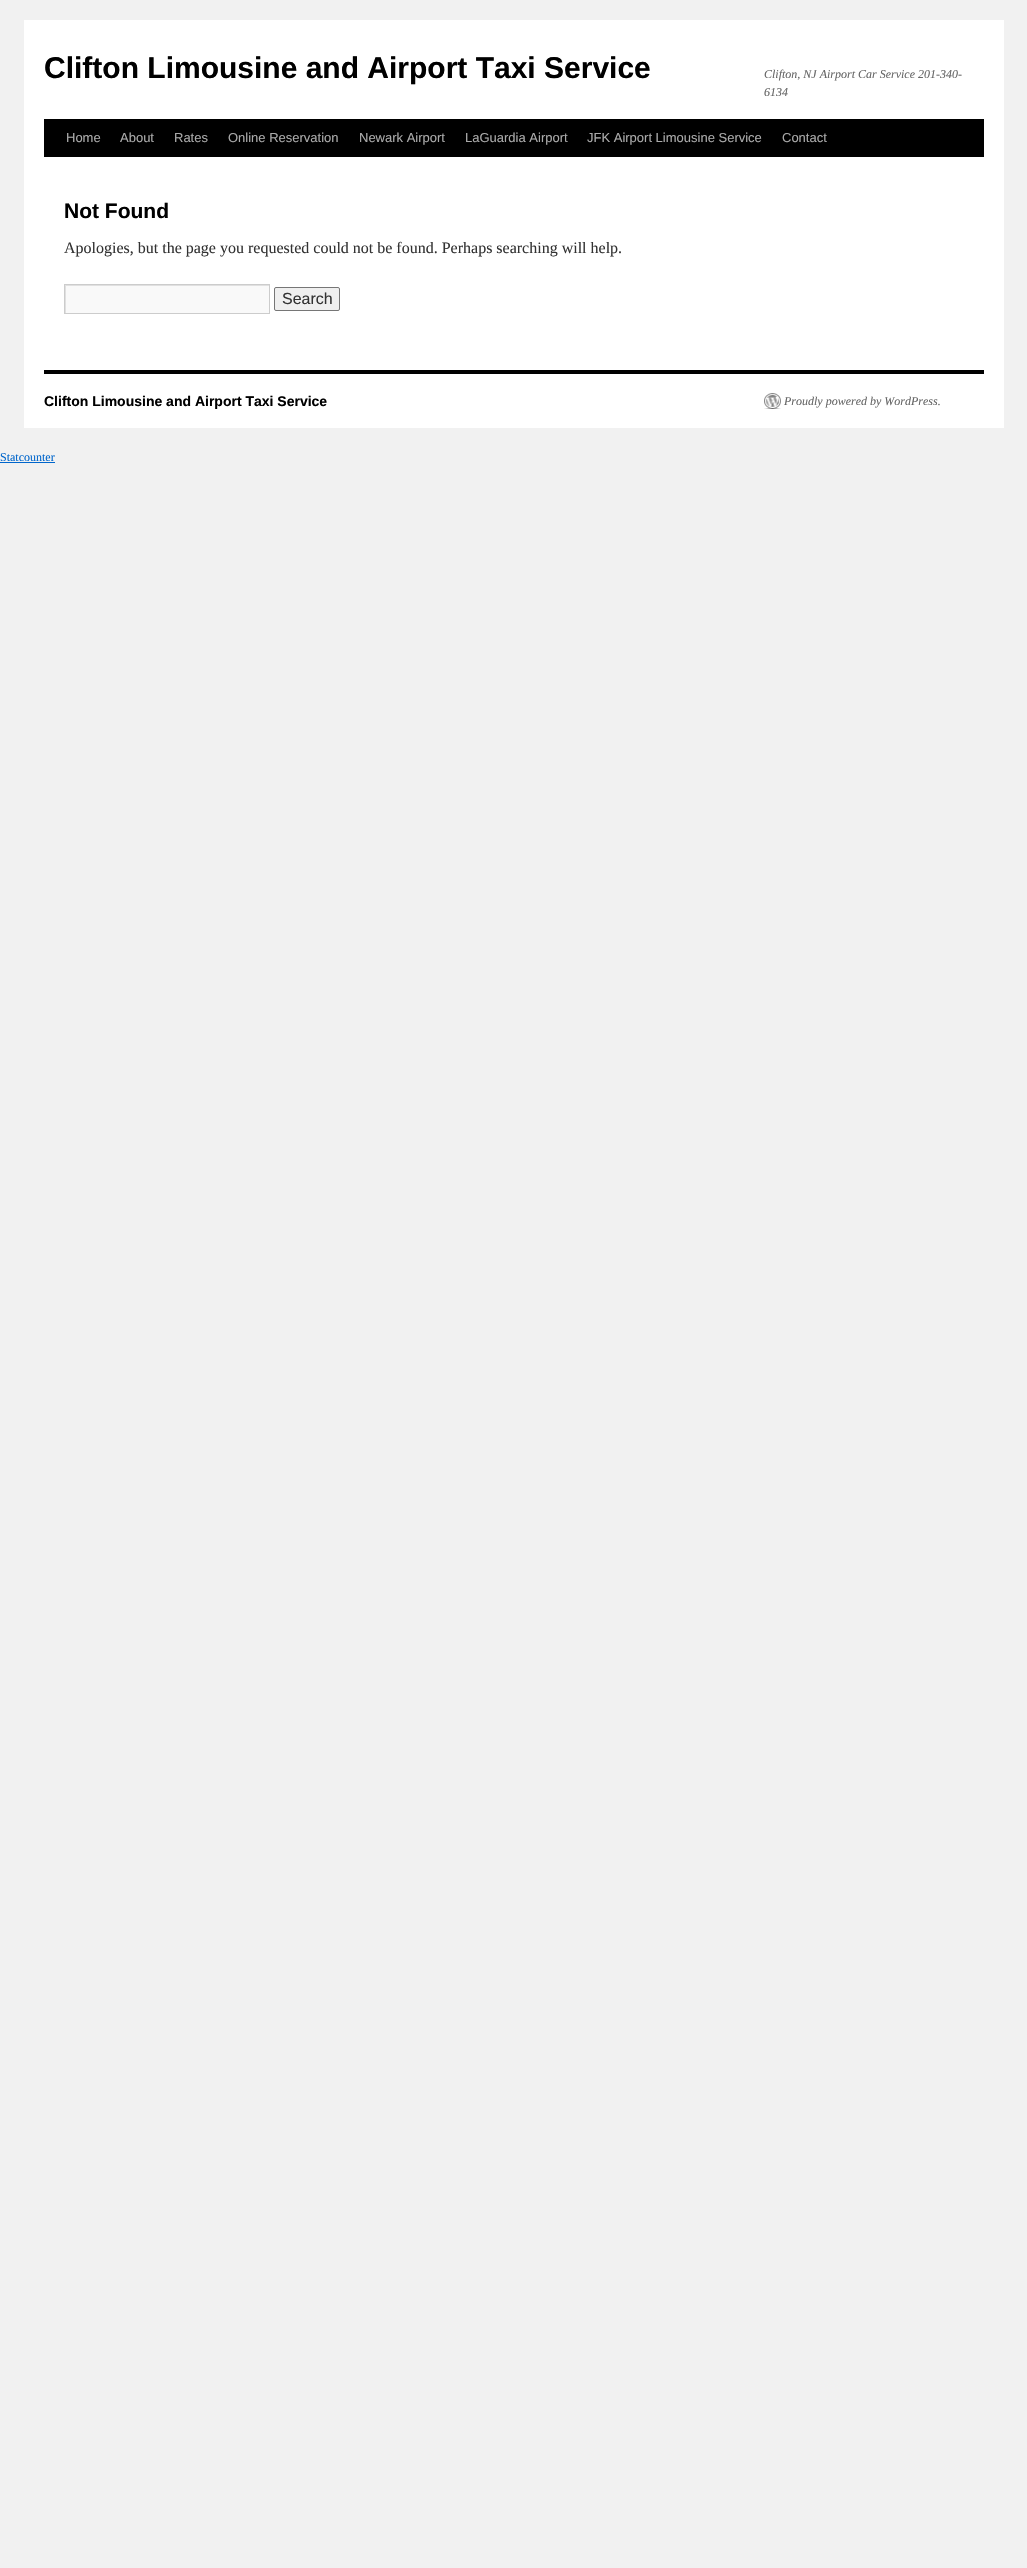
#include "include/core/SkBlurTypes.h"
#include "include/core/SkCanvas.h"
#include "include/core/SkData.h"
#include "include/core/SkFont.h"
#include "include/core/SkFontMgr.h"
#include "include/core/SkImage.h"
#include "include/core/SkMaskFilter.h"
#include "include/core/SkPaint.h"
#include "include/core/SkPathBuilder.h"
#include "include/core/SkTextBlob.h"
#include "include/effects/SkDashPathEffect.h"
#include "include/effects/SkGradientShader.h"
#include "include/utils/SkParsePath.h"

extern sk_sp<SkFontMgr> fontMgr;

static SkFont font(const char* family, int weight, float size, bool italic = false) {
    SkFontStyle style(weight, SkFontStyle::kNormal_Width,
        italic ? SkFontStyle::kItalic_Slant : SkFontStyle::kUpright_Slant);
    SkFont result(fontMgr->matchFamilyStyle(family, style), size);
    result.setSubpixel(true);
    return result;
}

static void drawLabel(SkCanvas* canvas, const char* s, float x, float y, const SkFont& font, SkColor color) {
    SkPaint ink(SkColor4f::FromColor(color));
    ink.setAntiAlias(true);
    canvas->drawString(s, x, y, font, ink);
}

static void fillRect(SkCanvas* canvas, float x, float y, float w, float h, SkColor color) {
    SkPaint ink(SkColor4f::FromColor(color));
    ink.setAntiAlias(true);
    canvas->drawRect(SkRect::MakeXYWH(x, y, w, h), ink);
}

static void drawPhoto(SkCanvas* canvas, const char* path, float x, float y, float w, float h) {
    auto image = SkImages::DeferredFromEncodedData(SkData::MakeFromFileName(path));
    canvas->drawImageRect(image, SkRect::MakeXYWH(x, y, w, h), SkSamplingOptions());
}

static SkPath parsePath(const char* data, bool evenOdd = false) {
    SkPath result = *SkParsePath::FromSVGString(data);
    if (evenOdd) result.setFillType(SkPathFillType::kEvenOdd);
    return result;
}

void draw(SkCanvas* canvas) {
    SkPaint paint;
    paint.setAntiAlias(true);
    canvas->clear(0xFFF1F1F1);
    fillRect(canvas, 24, 20, 980, 408, 0xFFFFFFFF);
    SkFont font1 = font("Liberation Sans", 700, 30);
    drawLabel(canvas, "Clifton Limousine and Airport Taxi Service", 44, 78, font1, 0xFF000000);
    SkFont font2 = font("Liberation Serif", 400, 12, true);
    drawLabel(canvas, "Clifton, NJ Airport Car Service 201-340-", 764, 78, font2, 0xFF666666);
    drawLabel(canvas, "6134", 764, 96, font2, 0xFF666666);
    fillRect(canvas, 44, 119, 940, 38, 0xFF000000);
    SkFont font3 = font("Liberation Sans", 400, 13);
    drawLabel(canvas, "Home", 66, 142, font3, 0xFFAAAAAA);
    drawLabel(canvas, "About", 120, 142, font3, 0xFFAAAAAA);
    drawLabel(canvas, "Rates", 174, 142, font3, 0xFFAAAAAA);
    drawLabel(canvas, "Online Reservation", 228, 142, font3, 0xFFAAAAAA);
    drawLabel(canvas, "Newark Airport", 359, 142, font3, 0xFFAAAAAA);
    drawLabel(canvas, "LaGuardia Airport", 465, 142, font3, 0xFFAAAAAA);
    drawLabel(canvas, "JFK Airport Limousine Service", 587, 142, font3, 0xFFAAAAAA);
    drawLabel(canvas, "Contact", 782, 142, font3, 0xFFAAAAAA);
    SkFont font4 = font("Liberation Sans", 700, 21);
    drawLabel(canvas, "Not Found", 64, 218, font4, 0xFF000000);
    SkFont font5 = font("Liberation Serif", 400, 16);
    drawLabel(canvas, "Apologies, but the page you requested could not be found. Perhaps searching will help.", 64, 253, font5, 0xFF333333);
    fillRect(canvas, 66, 286, 203, 27, 0xFFF9F9F9);
    canvas->save();
    canvas->clipRect(SkRect::MakeXYWH(65, 285, 204, 28));
    paint.setColor(0xFFE0E0E0);
    canvas->drawPath(parsePath("M-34 186H368V412H-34ZM66 286H270V314H66Z", true), paint);
    canvas->restore();
    paint.setStroke(true);
    paint.setStrokeWidth(1);
    paint.setColor(0xFFCCCCCC);
    canvas->drawRect(SkRect::MakeXYWH(64.5f, 284.5f, 205, 29), paint);
    paint.setStroke(false);
    paint.setColor(0xFFEFEFEF);
    canvas->drawRoundRect(SkRect::MakeXYWH(274.5f, 287.5f, 65, 23), 1.5f, 1.5f, paint);
    paint.setStroke(true);
    paint.setColor(0xFF767676);
    canvas->drawRoundRect(SkRect::MakeXYWH(274.5f, 287.5f, 65, 23), 1.5f, 1.5f, paint);
    SkFont font6 = font("Liberation Sans", 400, 16);
    drawLabel(canvas, "Search", 282, 304, font6, 0xFF333333);
    fillRect(canvas, 44, 370, 940, 4, 0xFF000000);
    SkFont font7 = font("Liberation Sans", 700, 14);
    drawLabel(canvas, "Clifton Limousine and Airport Taxi Service", 44, 406, font7, 0xFF000000);
    drawPhoto(canvas, "assets/img1.png", 764, 393, 17, 16);
    drawLabel(canvas, "Proudly powered by WordPress.", 784, 405, font2, 0xFF666666);
    SkFont font8 = font("Liberation Serif", 400, 12);
    drawLabel(canvas, "Statcounter", 0, 461, font8, 0xFF0066CC);
    fillRect(canvas, 0, 462, 55, 1, 0xFF0066CC);
}
